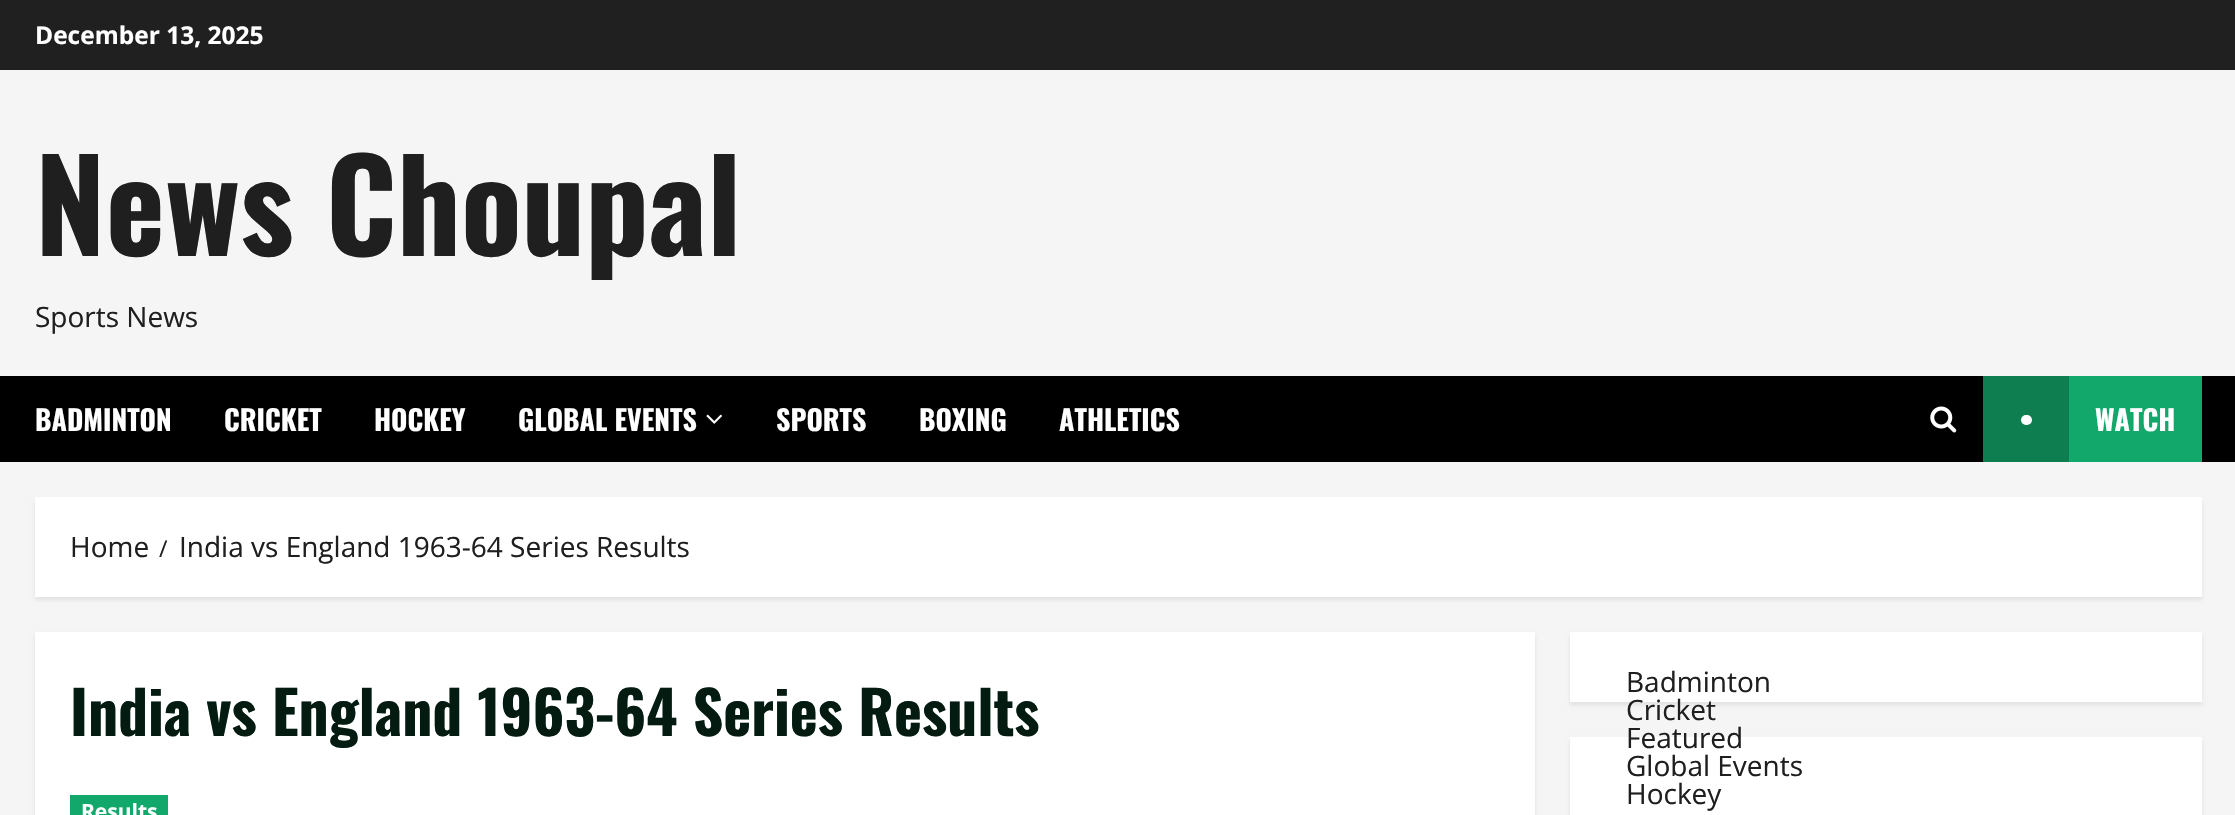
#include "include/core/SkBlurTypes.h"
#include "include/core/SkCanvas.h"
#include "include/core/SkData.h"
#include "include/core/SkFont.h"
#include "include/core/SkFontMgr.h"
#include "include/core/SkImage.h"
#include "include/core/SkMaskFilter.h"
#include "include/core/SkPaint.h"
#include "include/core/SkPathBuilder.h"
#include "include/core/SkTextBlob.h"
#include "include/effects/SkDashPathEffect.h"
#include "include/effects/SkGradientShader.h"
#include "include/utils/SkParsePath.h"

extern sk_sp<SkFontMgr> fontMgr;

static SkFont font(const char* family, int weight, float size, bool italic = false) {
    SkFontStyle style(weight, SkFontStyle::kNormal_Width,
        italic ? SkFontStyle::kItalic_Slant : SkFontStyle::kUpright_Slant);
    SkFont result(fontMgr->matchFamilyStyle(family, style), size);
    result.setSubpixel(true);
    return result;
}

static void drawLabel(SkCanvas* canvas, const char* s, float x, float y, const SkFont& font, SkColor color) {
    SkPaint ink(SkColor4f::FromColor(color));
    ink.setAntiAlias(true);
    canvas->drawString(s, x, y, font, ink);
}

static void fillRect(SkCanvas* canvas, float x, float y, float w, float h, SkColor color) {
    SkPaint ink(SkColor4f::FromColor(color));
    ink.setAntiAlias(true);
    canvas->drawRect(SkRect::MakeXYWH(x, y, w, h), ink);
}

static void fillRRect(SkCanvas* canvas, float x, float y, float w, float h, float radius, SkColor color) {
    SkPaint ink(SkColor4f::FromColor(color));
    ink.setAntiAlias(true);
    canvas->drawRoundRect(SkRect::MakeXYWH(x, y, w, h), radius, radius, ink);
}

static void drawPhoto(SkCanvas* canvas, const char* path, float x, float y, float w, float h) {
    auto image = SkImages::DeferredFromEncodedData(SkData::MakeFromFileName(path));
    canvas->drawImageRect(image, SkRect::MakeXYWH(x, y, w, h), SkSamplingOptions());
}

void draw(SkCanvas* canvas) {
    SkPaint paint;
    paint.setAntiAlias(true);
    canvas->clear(0xFFF5F5F5);
    fillRect(canvas, 0, 0, 2235, 70, 0xFF202020);
    SkFont font1 = font("Open Sans", 700, 24.5f);
    drawLabel(canvas, "December 13, 2025", 35, 44, font1, 0xFFFFFFFF);
    SkFont font2 = font("Oswald", 700, 126);
    drawLabel(canvas, "News Choupal", 35, 256, font2, 0xFF1F1F1F);
    SkFont font3 = font("Open Sans", 400, 28);
    drawLabel(canvas, "Sports News", 35, 327, font3, 0xFF1F1F1F);
    fillRect(canvas, 0, 376, 2235, 86, 0xFF000000);
    SkFont font4 = font("Oswald", 700, 28);
    drawLabel(canvas, "BADMINTON", 35, 431, font4, 0xFFFFFFFF);
    drawLabel(canvas, "CRICKET", 224, 431, font4, 0xFFFFFFFF);
    drawLabel(canvas, "HOCKEY", 374, 431, font4, 0xFFFFFFFF);
    drawLabel(canvas, "GLOBAL EVENTS", 518, 431, font4, 0xFFFFFFFF);
    drawPhoto(canvas, "assets/img1.png", 706, 414, 16, 10);
    drawLabel(canvas, "SPORTS", 776, 431, font4, 0xFFFFFFFF);
    drawLabel(canvas, "BOXING", 919, 431, font4, 0xFFFFFFFF);
    drawLabel(canvas, "ATHLETICS", 1059, 431, font4, 0xFFFFFFFF);
    drawPhoto(canvas, "assets/img2.png", 1930, 406, 27, 27);
    fillRect(canvas, 2069, 376, 133, 86, 0xFF12A86B);
    fillRect(canvas, 1983, 376, 86, 86, 0xFF0E7E50);
    fillRRect(canvas, 2021, 415, 11, 10, 5, 0xFFFFFFFF);
    drawLabel(canvas, "WATCH", 2095, 431, font4, 0xFFFFFFFF);
    paint.setColor(0x14000000);
    paint.setMaskFilter(SkMaskFilter::MakeBlur(kNormal_SkBlurStyle, 2));
    canvas->drawRect(SkRect::MakeXYWH(35, 501, 2167, 99), paint);
    paint.setMaskFilter(nullptr);
    fillRect(canvas, 35, 497, 2167, 100, 0xFFFFFFFF);
    drawLabel(canvas, "Home", 70, 557, font3, 0xFF1F1F1F);
    SkFont font5 = font("Open Sans", 400, 23);
    drawLabel(canvas, "/", 159, 557, font5, 0xFF1F1F1F);
    drawLabel(canvas, "India vs England 1963-64 Series Results", 179, 557, font3, 0xFF1F1F1F);
    paint.setMaskFilter(SkMaskFilter::MakeBlur(kNormal_SkBlurStyle, 2));
    canvas->drawRect(SkRect::MakeXYWH(35, 635, 1500, 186), paint);
    paint.setMaskFilter(nullptr);
    fillRect(canvas, 35, 632, 1500, 183, 0xFFFFFFFF);
    SkFont font6 = font("Oswald", 700, 59.5f);
    drawLabel(canvas, "India vs England 1963-64 Series Results", 70, 736, font6, 0xFF031B11);
    fillRect(canvas, 70, 795, 98, 20, 0xFF12A86B);
    SkFont font7 = font("Open Sans", 700, 21);
    drawLabel(canvas, "Results", 81, 819, font7, 0xFFFFFFFF);
    paint.setMaskFilter(SkMaskFilter::MakeBlur(kNormal_SkBlurStyle, 2));
    canvas->drawRect(SkRect::MakeXYWH(1570, 635, 632, 70), paint);
    paint.setMaskFilter(nullptr);
    fillRect(canvas, 1570, 632, 632, 70, 0xFFFFFFFF);
    drawLabel(canvas, "Badminton", 1626, 692, font3, 0xFF1F1F1F);
    drawLabel(canvas, "Cricket", 1626, 720, font3, 0xFF1F1F1F);
    paint.setMaskFilter(SkMaskFilter::MakeBlur(kNormal_SkBlurStyle, 2));
    canvas->drawRect(SkRect::MakeXYWH(1570, 740, 632, 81), paint);
    paint.setMaskFilter(nullptr);
    fillRect(canvas, 1570, 737, 632, 78, 0xFFFFFFFF);
    drawLabel(canvas, "Featured", 1626, 748, font3, 0xFF1F1F1F);
    drawLabel(canvas, "Global Events", 1626, 776, font3, 0xFF1F1F1F);
    drawLabel(canvas, "Hockey", 1626, 804, font3, 0xFF1F1F1F);
}
